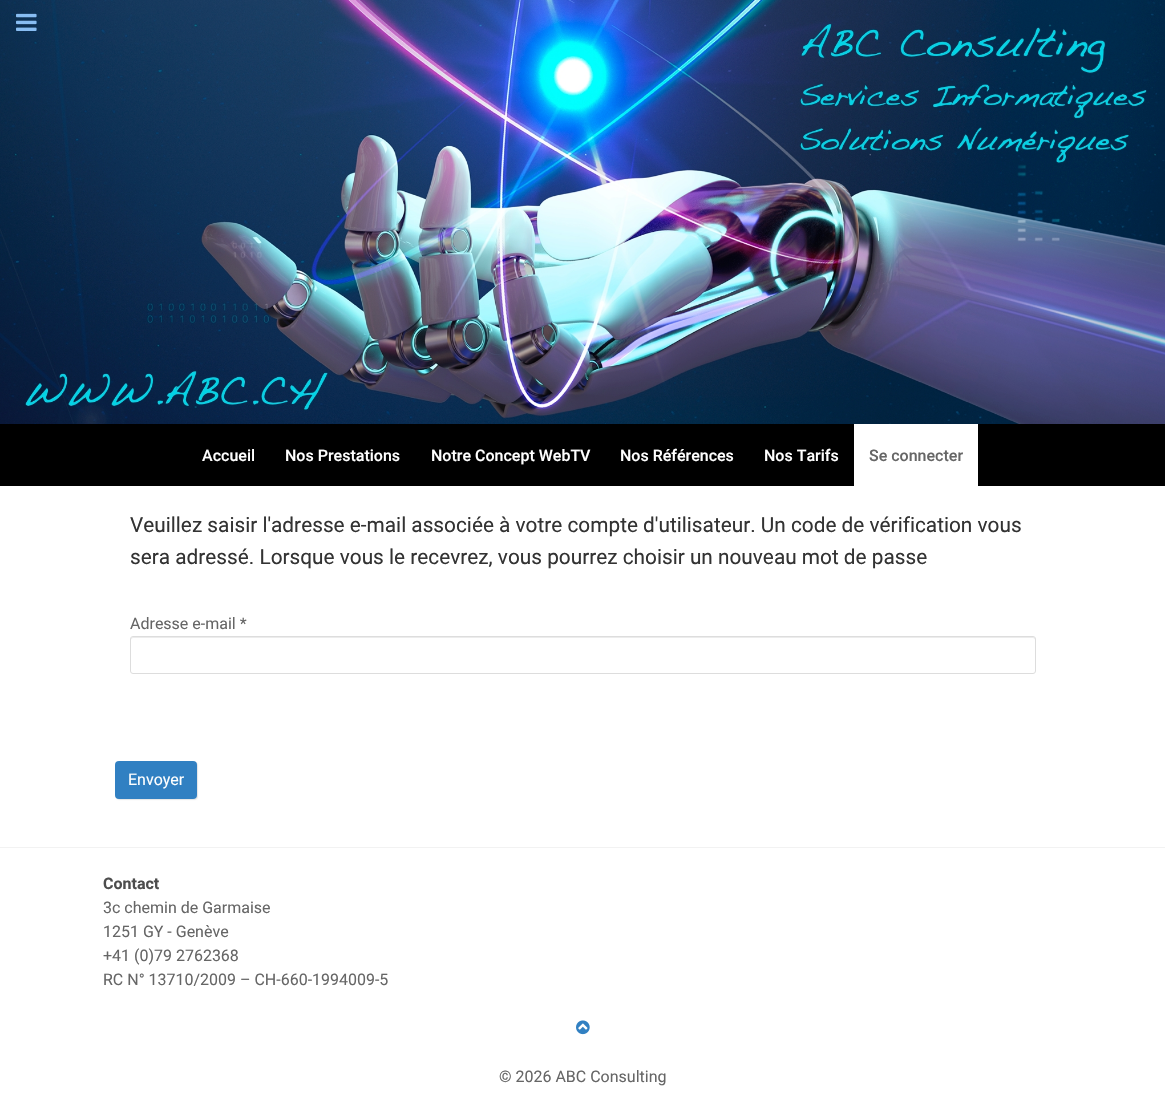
#include "include/core/SkBlurTypes.h"
#include "include/core/SkCanvas.h"
#include "include/core/SkData.h"
#include "include/core/SkFont.h"
#include "include/core/SkFontMgr.h"
#include "include/core/SkImage.h"
#include "include/core/SkMaskFilter.h"
#include "include/core/SkPaint.h"
#include "include/core/SkPathBuilder.h"
#include "include/core/SkTextBlob.h"
#include "include/effects/SkDashPathEffect.h"
#include "include/effects/SkGradientShader.h"
#include "include/utils/SkParsePath.h"

extern sk_sp<SkFontMgr> fontMgr;

static SkFont font(const char* family, int weight, float size, bool italic = false) {
    SkFontStyle style(weight, SkFontStyle::kNormal_Width,
        italic ? SkFontStyle::kItalic_Slant : SkFontStyle::kUpright_Slant);
    SkFont result(fontMgr->matchFamilyStyle(family, style), size);
    result.setSubpixel(true);
    return result;
}

static void drawLabel(SkCanvas* canvas, const char* s, float x, float y, const SkFont& font, SkColor color) {
    SkPaint ink(SkColor4f::FromColor(color));
    ink.setAntiAlias(true);
    canvas->drawString(s, x, y, font, ink);
}

static void fillRect(SkCanvas* canvas, float x, float y, float w, float h, SkColor color) {
    SkPaint ink(SkColor4f::FromColor(color));
    ink.setAntiAlias(true);
    canvas->drawRect(SkRect::MakeXYWH(x, y, w, h), ink);
}

static void fillRRect(SkCanvas* canvas, float x, float y, float w, float h, float radius, SkColor color) {
    SkPaint ink(SkColor4f::FromColor(color));
    ink.setAntiAlias(true);
    canvas->drawRoundRect(SkRect::MakeXYWH(x, y, w, h), radius, radius, ink);
}

static void drawPhoto(SkCanvas* canvas, const char* path, float x, float y, float w, float h) {
    auto image = SkImages::DeferredFromEncodedData(SkData::MakeFromFileName(path));
    canvas->drawImageRect(image, SkRect::MakeXYWH(x, y, w, h), SkSamplingOptions());
}

static SkPath parsePath(const char* data, bool evenOdd = false) {
    SkPath result = *SkParsePath::FromSVGString(data);
    if (evenOdd) result.setFillType(SkPathFillType::kEvenOdd);
    return result;
}

void draw(SkCanvas* canvas) {
    SkPaint paint;
    paint.setAntiAlias(true);
    canvas->clear(0xFFFFFFFF);
    drawPhoto(canvas, "assets/img1.png", 0, 0, 1165, 424);
    drawPhoto(canvas, "assets/img2.png", 16, 13, 21, 18);
    fillRect(canvas, 0, 424, 1165, 62, 0xFF000000);
    SkFont font1 = font("Roboto", 500, 16);
    drawLabel(canvas, "Accueil", 202, 461, font1, 0xFFFFFFFF);
    drawLabel(canvas, "Nos Prestations", 285, 461, font1, 0xFFFFFFFF);
    drawLabel(canvas, "Notre Concept WebTV", 431, 461, font1, 0xFFFFFFFF);
    drawLabel(canvas, "Nos Références", 620, 461, font1, 0xFFFFFFFF);
    drawLabel(canvas, "Nos Tarifs", 764, 461, font1, 0xFFFFFFFF);
    fillRect(canvas, 854, 424, 124, 62, 0xFFFFFFFF);
    drawLabel(canvas, "Se connecter", 869, 461, font1, 0xFF666666);
    SkFont font2 = font("Roboto", 400, 20.8f);
    drawLabel(canvas, "Veuillez saisir l'adresse e-mail associée à votre compte d'utilisateur. Un code de vérification vous", 130, 532, font2, 0xFF333333);
    drawLabel(canvas, "sera adressé. Lorsque vous le recevrez, vous pourrez choisir un nouveau mot de passe", 130, 564, font2, 0xFF333333);
    SkFont font3 = font("Roboto", 400, 16);
    drawLabel(canvas, "Adresse e-mail *", 130, 629, font3, 0xFF666666);
    paint.setColor(0xFFECECEC);
    canvas->drawPath(parsePath("M133 638H1033C1034 638 1035 639 1035 640V639C1035 638 1034 637 1033 637H133C132 637 131 638 131 639V640C131 639 132 638 133 638Z"), paint);
    paint.setStroke(true);
    paint.setStrokeWidth(1);
    paint.setColor(0xFFDDDDDD);
    canvas->drawRoundRect(SkRect::MakeXYWH(130.5f, 636.5f, 905, 37), 2.5f, 2.5f, paint);
    paint.setStroke(false);
    paint.setColor(0x1A000000);
    paint.setMaskFilter(SkMaskFilter::MakeBlur(kNormal_SkBlurStyle, 0.5f));
    canvas->drawRoundRect(SkRect::MakeXYWH(116, 762, 82, 38), 4, 4, paint);
    paint.setMaskFilter(nullptr);
    fillRRect(canvas, 115, 761, 82, 38, 4, 0xFF3180C2);
    drawLabel(canvas, "Envoyer", 128, 785, font3, 0xFFFFFFFF);
    fillRect(canvas, 0, 847, 1165, 1, 0xFFF2F2F2);
    SkFont font4 = font("Roboto", 700, 16);
    drawLabel(canvas, "Contact", 103, 889, font4, 0xFF4D4D4D);
    drawLabel(canvas, "3c chemin de Garmaise", 103, 913, font3, 0xFF666666);
    drawLabel(canvas, "1251 GY - Genève", 103, 937, font3, 0xFF666666);
    drawLabel(canvas, "+41 (0)79 2762368", 103, 961, font3, 0xFF666666);
    drawLabel(canvas, "RC N° 13710/2009 – CH-660-1994009-5", 103, 985, font3, 0xFF666666);
    drawPhoto(canvas, "assets/img3.png", 576, 1020, 14, 15);
    drawLabel(canvas, "© 2026 ABC Consulting", 499, 1082, font3, 0xFF666666);
}
